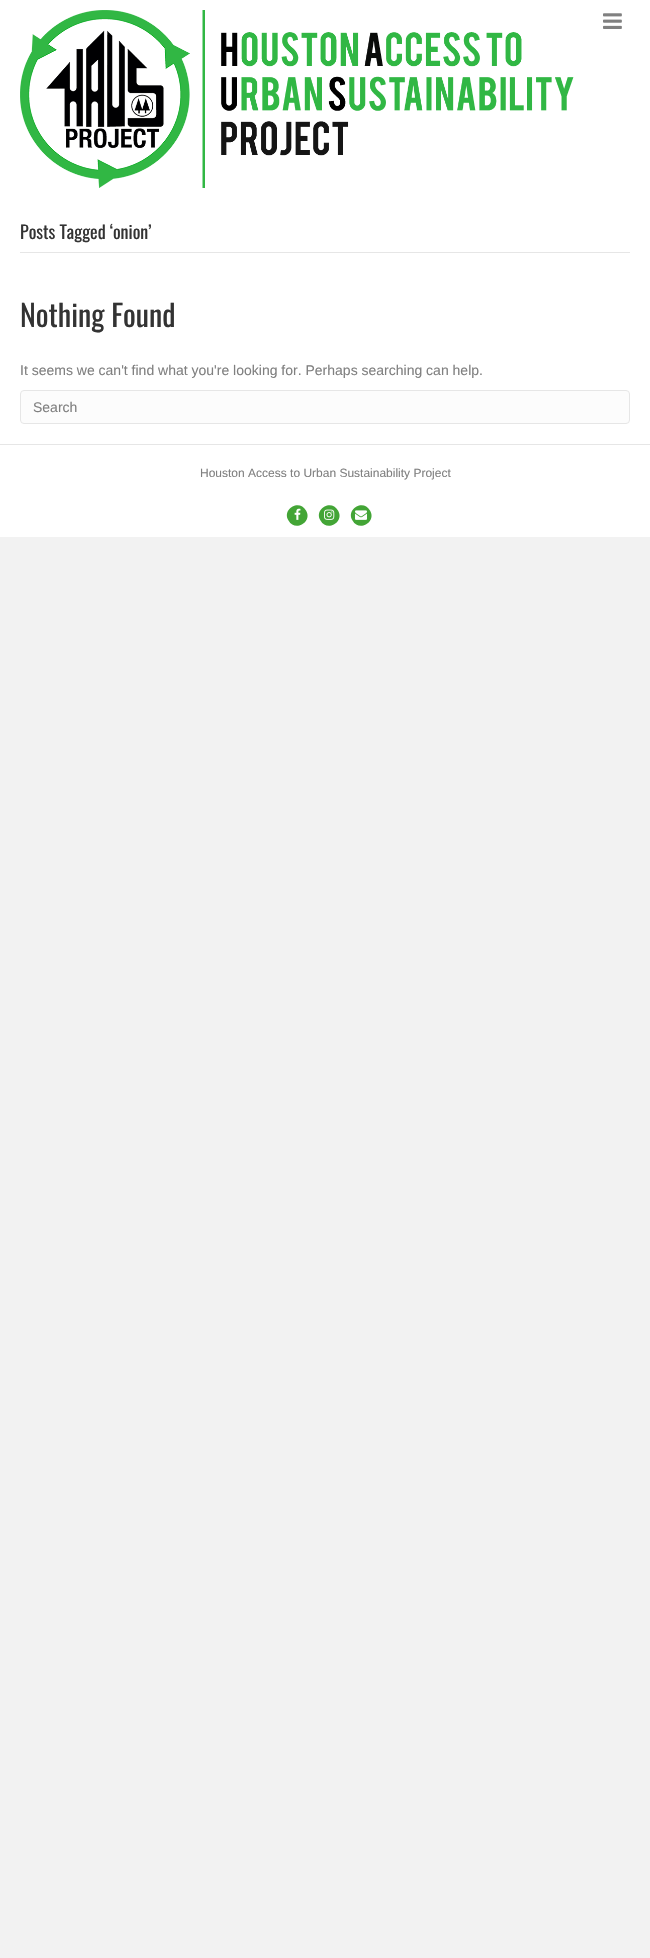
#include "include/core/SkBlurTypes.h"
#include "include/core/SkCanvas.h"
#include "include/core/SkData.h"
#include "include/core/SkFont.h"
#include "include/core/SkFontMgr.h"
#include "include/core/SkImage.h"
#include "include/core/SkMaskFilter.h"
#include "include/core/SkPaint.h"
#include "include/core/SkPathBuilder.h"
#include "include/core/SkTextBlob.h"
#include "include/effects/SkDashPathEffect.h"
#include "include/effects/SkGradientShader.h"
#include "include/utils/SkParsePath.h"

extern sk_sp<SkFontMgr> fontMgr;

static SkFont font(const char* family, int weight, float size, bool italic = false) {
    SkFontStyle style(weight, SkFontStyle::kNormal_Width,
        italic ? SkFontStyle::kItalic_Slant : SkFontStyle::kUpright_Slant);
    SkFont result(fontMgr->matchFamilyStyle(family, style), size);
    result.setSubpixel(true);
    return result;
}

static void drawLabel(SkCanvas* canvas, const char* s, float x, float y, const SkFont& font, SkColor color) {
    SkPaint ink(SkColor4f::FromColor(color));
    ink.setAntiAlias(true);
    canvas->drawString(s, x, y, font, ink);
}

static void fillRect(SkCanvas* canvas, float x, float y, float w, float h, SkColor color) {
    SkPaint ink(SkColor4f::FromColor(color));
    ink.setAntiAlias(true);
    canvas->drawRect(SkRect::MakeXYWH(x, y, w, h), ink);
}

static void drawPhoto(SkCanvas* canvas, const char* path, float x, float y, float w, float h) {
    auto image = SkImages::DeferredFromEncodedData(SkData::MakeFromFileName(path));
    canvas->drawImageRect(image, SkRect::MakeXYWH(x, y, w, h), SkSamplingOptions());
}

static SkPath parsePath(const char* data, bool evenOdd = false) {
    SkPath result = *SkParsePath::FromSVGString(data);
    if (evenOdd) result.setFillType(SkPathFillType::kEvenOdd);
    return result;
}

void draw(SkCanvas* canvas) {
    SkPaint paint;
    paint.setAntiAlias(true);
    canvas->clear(0xFFF2F2F2);
    fillRect(canvas, 0, 0, 650, 444, 0xFFFFFFFF);
    drawPhoto(canvas, "assets/img1.png", 20, 10, 554, 178);
    drawPhoto(canvas, "assets/img2.png", 603, 13, 19, 16);
    fillRect(canvas, 20, 252, 610, 1, 0xFFE6E6E6);
    SkFont font1 = font("Oswald", 400, 18);
    drawLabel(canvas, "Posts Tagged ‘onion’", 20, 239, font1, 0xFF333333);
    SkFont font2 = font("Oswald", 400, 30);
    drawLabel(canvas, "Nothing Found", 20, 327, font2, 0xFF333333);
    SkFont font3 = font("Liberation Sans", 400, 14);
    drawLabel(canvas, "It seems we can't find what you're looking for. Perhaps searching can help.", 20, 375, font3, 0xFF808080);
    paint.setColor(0xFFFCFCFC);
    canvas->drawRoundRect(SkRect::MakeXYWH(20.5f, 390.5f, 609, 33), 3.5f, 3.5f, paint);
    paint.setStroke(true);
    paint.setStrokeWidth(1);
    paint.setColor(0xFFE6E6E6);
    canvas->drawRoundRect(SkRect::MakeXYWH(20.5f, 390.5f, 609, 33), 3.5f, 3.5f, paint);
    drawLabel(canvas, "Search", 33, 412, font3, 0xFF808080);
    fillRect(canvas, 0, 445, 650, 92, 0xFFFFFFFF);
    fillRect(canvas, 0, 444, 650, 1, 0xFFE6E6E6);
    SkFont font4 = font("Liberation Sans", 400, 12);
    drawLabel(canvas, "Houston Access to Urban Sustainability Project", 200, 477, font4, 0xFF808080);
    paint.setStroke(false);
    paint.setColor(0xFF43A536);
    canvas->drawPath(parsePath("M306 510.5C313 522 295 532.5 288.5 520.5C281.5 509 299.5 498.5 306 510.5Z"), paint);
    drawPhoto(canvas, "assets/img3.png", 294, 508, 7, 12);
    canvas->drawPath(parsePath("M338 510.5C345 522 327 532.5 320.5 520.5C313.5 509 331.5 498.5 338 510.5Z"), paint);
    drawPhoto(canvas, "assets/img4.png", 324, 509, 11, 11);
    canvas->drawPath(parsePath("M370 510.5C377 522 359 532.5 352.5 520.5C345.5 509 363.5 498.5 370 510.5Z"), paint);
    drawPhoto(canvas, "assets/img5.png", 355, 510, 12, 10);
}
